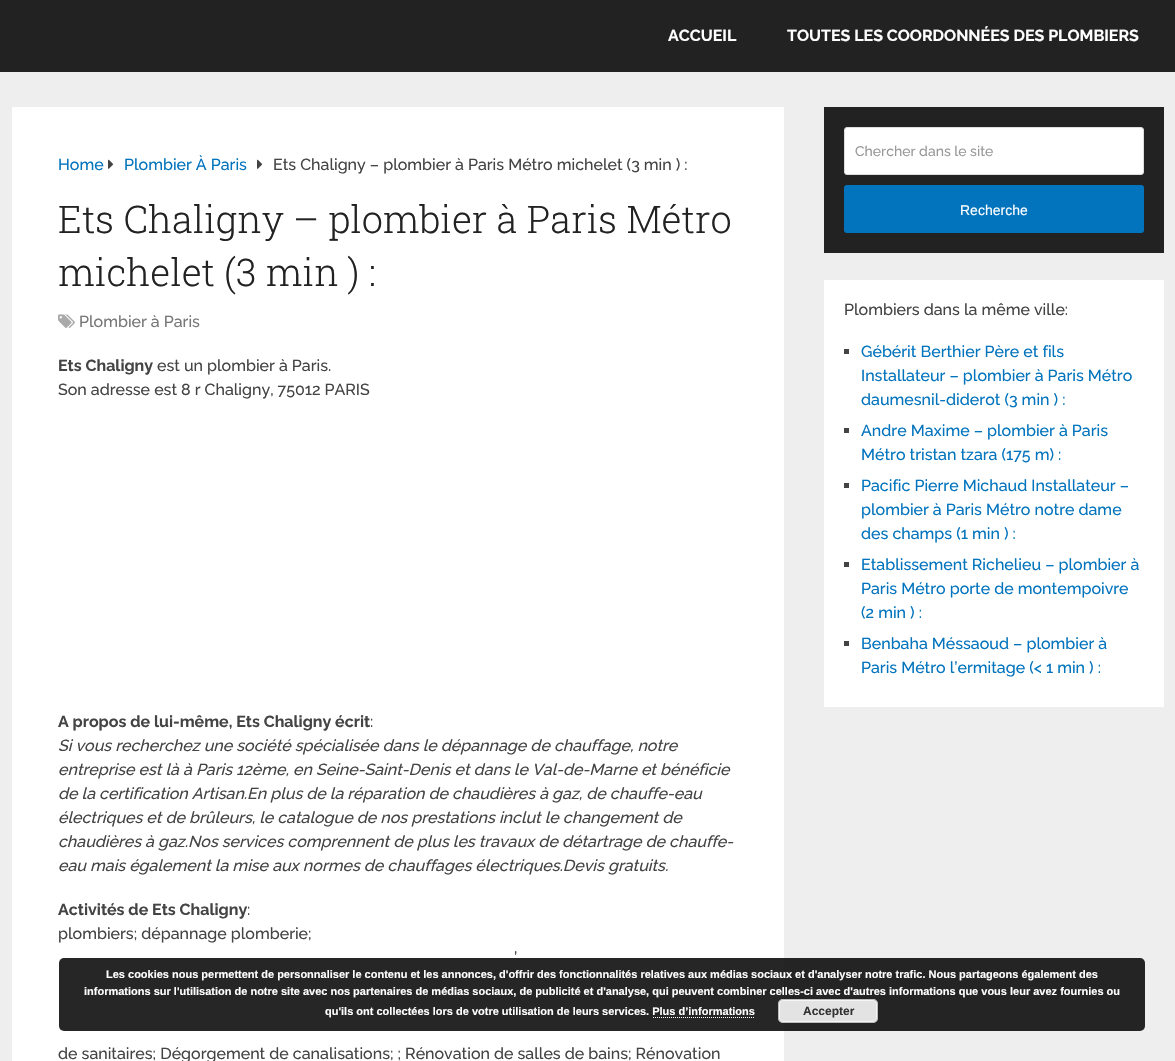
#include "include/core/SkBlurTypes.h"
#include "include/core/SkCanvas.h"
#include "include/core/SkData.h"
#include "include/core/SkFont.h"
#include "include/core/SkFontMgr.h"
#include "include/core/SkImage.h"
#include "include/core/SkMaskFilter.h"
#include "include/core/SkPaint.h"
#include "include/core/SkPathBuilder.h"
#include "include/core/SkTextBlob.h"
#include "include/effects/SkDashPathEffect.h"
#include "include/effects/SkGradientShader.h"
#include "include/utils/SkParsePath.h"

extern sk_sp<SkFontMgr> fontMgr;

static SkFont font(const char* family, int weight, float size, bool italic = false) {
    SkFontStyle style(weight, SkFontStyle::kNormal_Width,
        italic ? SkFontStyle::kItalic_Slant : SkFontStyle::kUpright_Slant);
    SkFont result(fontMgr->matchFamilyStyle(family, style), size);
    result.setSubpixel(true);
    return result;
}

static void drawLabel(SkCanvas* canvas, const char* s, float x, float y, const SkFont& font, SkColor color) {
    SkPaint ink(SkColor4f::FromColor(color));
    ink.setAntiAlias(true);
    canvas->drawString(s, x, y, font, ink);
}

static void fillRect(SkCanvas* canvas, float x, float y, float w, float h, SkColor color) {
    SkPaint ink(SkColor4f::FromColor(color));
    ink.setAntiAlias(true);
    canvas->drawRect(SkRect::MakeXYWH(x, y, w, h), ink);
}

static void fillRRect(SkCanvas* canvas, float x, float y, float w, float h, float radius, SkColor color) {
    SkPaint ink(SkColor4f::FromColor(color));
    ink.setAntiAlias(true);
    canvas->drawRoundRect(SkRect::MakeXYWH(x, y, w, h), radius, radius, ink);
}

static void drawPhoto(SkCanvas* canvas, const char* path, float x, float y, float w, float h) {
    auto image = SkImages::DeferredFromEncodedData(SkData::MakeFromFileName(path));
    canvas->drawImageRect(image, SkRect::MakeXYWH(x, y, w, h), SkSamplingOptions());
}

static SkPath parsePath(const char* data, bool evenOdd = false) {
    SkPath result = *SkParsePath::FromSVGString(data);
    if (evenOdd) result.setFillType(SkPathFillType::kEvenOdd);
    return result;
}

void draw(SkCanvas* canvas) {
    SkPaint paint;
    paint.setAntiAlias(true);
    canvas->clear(0xFFEEEEEE);
    fillRect(canvas, 0, 0, 1175, 72, 0xFF222222);
    SkFont font1 = font("Raleway", 700, 16);
    drawLabel(canvas, "ACCUEIL", 668, 41, font1, 0xFFFFFFFF);
    drawLabel(canvas, "TOUTES LES COORDONNÉES DES PLOMBIERS", 787, 41, font1, 0xFFFFFFFF);
    fillRect(canvas, 12, 107, 772, 954, 0xFFFFFFFF);
    SkFont font2 = font("Raleway", 500, 16);
    drawLabel(canvas, "Home", 58, 170, font2, 0xFF0274BE);
    drawPhoto(canvas, "assets/img1.png", 108, 159, 6, 10);
    drawLabel(canvas, "Plombier À Paris", 124, 170, font2, 0xFF0274BE);
    drawPhoto(canvas, "assets/img1.png", 257, 159, 6, 10);
    drawLabel(canvas, "Ets Chaligny – plombier à Paris Métro michelet (3 min ) :", 273, 170, font2, 0xFF444444);
    SkFont font3 = font("Roboto Slab", 300, 38);
    drawLabel(canvas, "Ets Chaligny – plombier à Paris Métro", 58, 233, font3, 0xFF222222);
    drawLabel(canvas, "michelet (3 min ) :", 58, 286, font3, 0xFF222222);
    drawPhoto(canvas, "assets/img2.png", 58, 314, 17, 14);
    drawLabel(canvas, "Plombier à Paris", 79, 327, font2, 0xFF777777);
    drawLabel(canvas, "Ets Chaligny", 58, 371, font1, 0xFF444444);
    drawLabel(canvas, "est un plombier à Paris.", 157, 371, font2, 0xFF444444);
    drawLabel(canvas, "Son adresse est 8 r Chaligny, 75012 PARIS", 58, 395, font2, 0xFF444444);
    drawLabel(canvas, "A propos de lui-même, Ets Chaligny écrit", 58, 727, font1, 0xFF444444);
    drawLabel(canvas, ":", 370, 727, font2, 0xFF444444);
    SkFont font4 = font("Raleway", 500, 16, true);
    drawLabel(canvas, "Si vous recherchez une société spécialisée dans le dépannage de chauffage, notre", 58, 751, font4, 0xFF444444);
    drawLabel(canvas, "entreprise est là à Paris 12ème, en Seine-Saint-Denis et dans le Val-de-Marne et bénéficie", 58, 775, font4, 0xFF444444);
    drawLabel(canvas, "de la certification Artisan.En plus de la réparation de chaudières à gaz, de chauffe-eau", 58, 799, font4, 0xFF444444);
    drawLabel(canvas, "électriques et de brûleurs, le catalogue de nos prestations inclut le changement de", 58, 823, font4, 0xFF444444);
    drawLabel(canvas, "chaudières à gaz.Nos services comprennent de plus les travaux de détartrage de chauffe-", 58, 847, font4, 0xFF444444);
    drawLabel(canvas, "eau mais également la mise aux normes de chauffages électriques.Devis gratuits.", 58, 871, font4, 0xFF444444);
    drawLabel(canvas, "Activités de Ets Chaligny", 58, 915, font1, 0xFF444444);
    drawLabel(canvas, ":", 247, 915, font2, 0xFF444444);
    drawLabel(canvas, "plombiers; dépannage plomberie;", 58, 939, font2, 0xFF444444);
    drawLabel(canvas, "’", 514, 963, font2, 0xFF444444);
    drawLabel(canvas, "de sanitaires; Dégorgement de canalisations; ; Rénovation de salles de bains; Rénovation", 58, 1059, font2, 0xFF444444);
    fillRect(canvas, 824, 107, 340, 146, 0xFF222222);
    paint.setColor(0xFFFFFFFF);
    canvas->drawRoundRect(SkRect::MakeXYWH(844.5f, 127.5f, 299, 47), 2.5f, 2.5f, paint);
    paint.setStroke(true);
    paint.setStrokeWidth(1);
    paint.setColor(0xFFDDDDDD);
    canvas->drawRoundRect(SkRect::MakeXYWH(844.5f, 127.5f, 299, 47), 2.5f, 2.5f, paint);
    SkFont font5 = font("Raleway", 500, 14);
    drawLabel(canvas, "Chercher dans le site", 855, 156, font5, 0xFF999999);
    fillRRect(canvas, 844, 185, 300, 48, 3, 0xFF0274BE);
    SkFont font6 = font("Liberation Sans", 400, 14);
    drawLabel(canvas, "Recherche", 960, 215, font6, 0xFFFFFFFF);
    fillRect(canvas, 824, 280, 340, 427, 0xFFFFFFFF);
    drawLabel(canvas, "Plombiers dans la même ville:", 844, 315, font2, 0xFF444444);
    fillRect(canvas, 844, 349, 5, 5, 0xFF444444);
    drawLabel(canvas, "Gébérit Berthier Père et fils", 861, 357, font2, 0xFF0274BE);
    drawLabel(canvas, "Installateur – plombier à Paris Métro", 861, 381, font2, 0xFF0274BE);
    drawLabel(canvas, "daumesnil-diderot (3 min ) :", 861, 405, font2, 0xFF0274BE);
    fillRect(canvas, 844, 428, 5, 5, 0xFF444444);
    drawLabel(canvas, "Andre Maxime – plombier à Paris", 861, 436, font2, 0xFF0274BE);
    drawLabel(canvas, "Métro tristan tzara (175 m) :", 861, 460, font2, 0xFF0274BE);
    fillRect(canvas, 844, 483, 5, 5, 0xFF444444);
    drawLabel(canvas, "Pacific Pierre Michaud Installateur –", 861, 491, font2, 0xFF0274BE);
    drawLabel(canvas, "plombier à Paris Métro notre dame", 861, 515, font2, 0xFF0274BE);
    drawLabel(canvas, "des champs (1 min ) :", 861, 539, font2, 0xFF0274BE);
    fillRect(canvas, 844, 562, 5, 5, 0xFF444444);
    drawLabel(canvas, "Etablissement Richelieu – plombier à", 861, 570, font2, 0xFF0274BE);
    drawLabel(canvas, "Paris Métro porte de montempoivre", 861, 594, font2, 0xFF0274BE);
    drawLabel(canvas, "(2 min ) :", 861, 618, font2, 0xFF0274BE);
    fillRect(canvas, 844, 641, 5, 5, 0xFF444444);
    drawLabel(canvas, "Benbaha Méssaoud – plombier à", 861, 649, font2, 0xFF0274BE);
    drawLabel(canvas, "Paris Métro l’ermitage (< 1 min ) :", 861, 673, font2, 0xFF0274BE);
    fillRRect(canvas, 59, 958, 1086, 73, 5, 0xD9000000);
    SkFont font7 = font("Liberation Sans", 700, 11);
    drawLabel(canvas, "Les cookies nous permettent de personnaliser le contenu et les annonces, d'offrir des fonctionnalités relatives aux médias sociaux et d'analyser notre trafic. Nous partageons également des", 106, 978, font7, 0xFFFFFFFF);
    drawLabel(canvas, "informations sur l'utilisation de notre site avec nos partenaires de médias sociaux, de publicité et d'analyse, qui peuvent combiner celles-ci avec d'autres informations que vous leur avez fournies ou", 84, 995, font7, 0xFFFFFFFF);
    drawLabel(canvas, "qu'ils ont collectées lors de votre utilisation de leurs services. Plus d’informations", 325, 1015, font7, 0xFFFFFFFF);
    fillRRect(canvas, 778, 999, 100, 24, 5, 0xFFE3E3E3);
    paint.setColor(0xFFF6F6F6);
    canvas->drawRoundRect(SkRect::MakeXYWH(779.5f, 1000.5f, 97, 21), 3.5f, 3.5f, paint);
    paint.setColor(0xFFBBBBBB);
    canvas->drawRoundRect(SkRect::MakeXYWH(778.5f, 999.5f, 99, 23), 4.5f, 4.5f, paint);
    SkFont font8 = font("Liberation Sans", 700, 12);
    drawLabel(canvas, "Accepter", 803, 1015, font8, 0xFF333333);
    paint.setColor(0xFFFFFFFF);
    paint.setPathEffect(SkDashPathEffect::Make({{1, 1}}, 0));
    canvas->drawPath(parsePath("M653 1017.5H755"), paint);
    paint.setPathEffect(nullptr);
}
